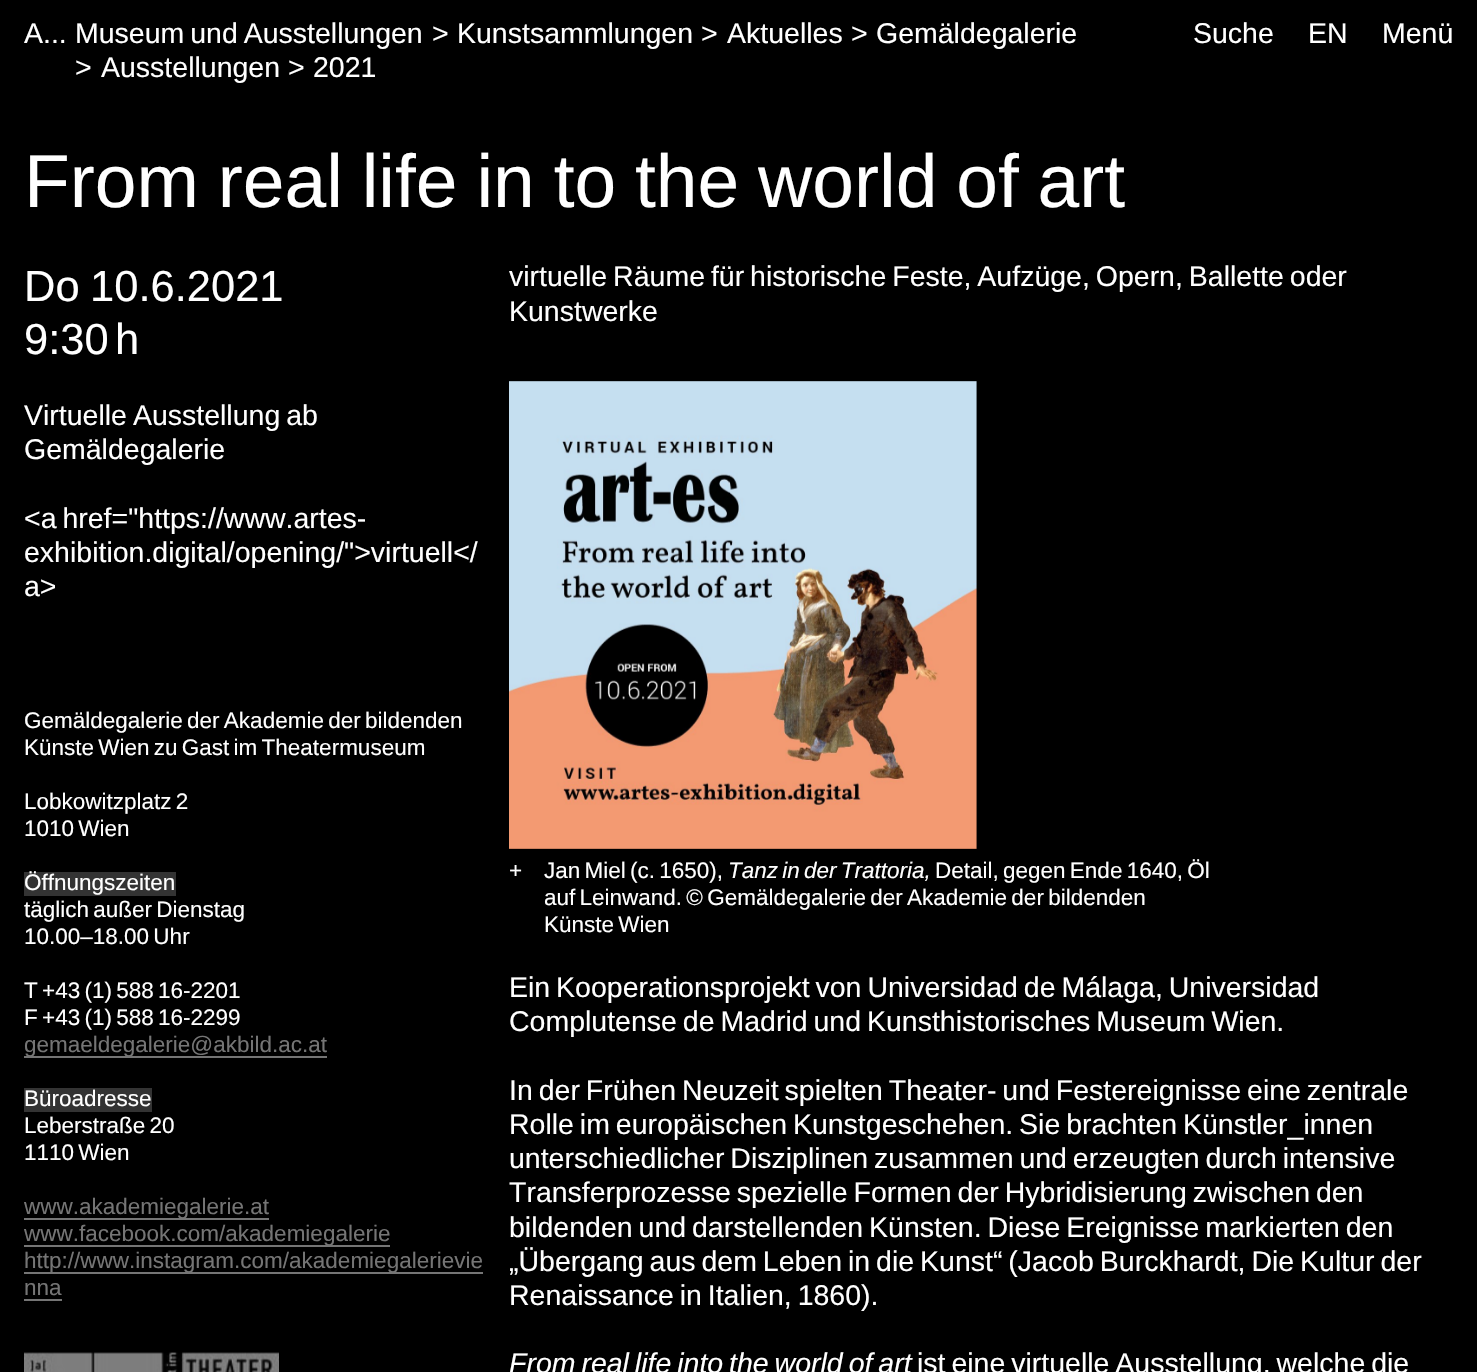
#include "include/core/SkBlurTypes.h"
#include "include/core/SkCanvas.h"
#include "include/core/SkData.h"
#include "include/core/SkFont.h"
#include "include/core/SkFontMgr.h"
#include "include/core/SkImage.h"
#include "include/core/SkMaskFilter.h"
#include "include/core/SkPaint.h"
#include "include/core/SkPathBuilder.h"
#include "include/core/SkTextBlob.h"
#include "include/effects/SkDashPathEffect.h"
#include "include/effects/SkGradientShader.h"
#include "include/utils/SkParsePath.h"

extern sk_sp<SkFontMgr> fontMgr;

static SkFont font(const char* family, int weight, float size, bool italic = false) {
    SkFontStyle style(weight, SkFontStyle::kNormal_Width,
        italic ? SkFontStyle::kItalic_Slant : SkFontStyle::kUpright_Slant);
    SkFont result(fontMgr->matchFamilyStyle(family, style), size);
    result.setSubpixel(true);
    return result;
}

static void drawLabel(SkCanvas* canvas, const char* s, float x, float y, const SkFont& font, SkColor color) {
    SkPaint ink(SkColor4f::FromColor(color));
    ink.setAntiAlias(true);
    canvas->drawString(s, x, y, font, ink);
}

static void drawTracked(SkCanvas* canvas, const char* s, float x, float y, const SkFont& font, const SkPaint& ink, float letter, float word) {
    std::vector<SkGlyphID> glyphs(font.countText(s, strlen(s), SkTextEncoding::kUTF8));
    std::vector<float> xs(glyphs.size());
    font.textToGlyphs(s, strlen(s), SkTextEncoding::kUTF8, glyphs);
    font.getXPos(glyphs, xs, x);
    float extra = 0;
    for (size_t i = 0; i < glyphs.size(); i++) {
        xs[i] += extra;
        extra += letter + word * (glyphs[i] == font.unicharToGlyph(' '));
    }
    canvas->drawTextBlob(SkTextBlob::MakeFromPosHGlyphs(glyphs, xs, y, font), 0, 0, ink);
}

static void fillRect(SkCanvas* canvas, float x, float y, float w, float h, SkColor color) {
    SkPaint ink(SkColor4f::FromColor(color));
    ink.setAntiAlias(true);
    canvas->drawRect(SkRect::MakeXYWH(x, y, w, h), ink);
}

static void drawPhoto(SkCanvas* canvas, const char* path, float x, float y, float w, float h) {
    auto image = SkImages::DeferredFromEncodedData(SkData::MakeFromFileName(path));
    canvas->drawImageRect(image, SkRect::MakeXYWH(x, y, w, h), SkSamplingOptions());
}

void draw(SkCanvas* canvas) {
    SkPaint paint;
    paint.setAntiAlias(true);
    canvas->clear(0xFF000000);
    SkFont font1 = font("Liberation Sans", 400, 28.5f);
    drawLabel(canvas, "A...", 24, 43, font1, 0xFFFFFFFF);
    paint.setColor(0xFFFFFFFF);
    drawTracked(canvas, "Museum und Ausstellungen", 75, 43, font1, paint, 0, -2);
    drawLabel(canvas, ">", 432, 43, font1, 0xFFFFFFFF);
    drawLabel(canvas, "Kunstsammlungen", 457, 43, font1, 0xFFFFFFFF);
    drawLabel(canvas, ">", 701, 43, font1, 0xFFFFFFFF);
    drawLabel(canvas, "Aktuelles", 727, 43, font1, 0xFFFFFFFF);
    drawLabel(canvas, ">", 851, 43, font1, 0xFFFFFFFF);
    drawLabel(canvas, "Gemäldegalerie", 876, 43, font1, 0xFFFFFFFF);
    drawLabel(canvas, ">", 75, 77, font1, 0xFFFFFFFF);
    drawLabel(canvas, "Ausstellungen", 101, 77, font1, 0xFFFFFFFF);
    drawLabel(canvas, ">", 288, 77, font1, 0xFFFFFFFF);
    drawLabel(canvas, "2021", 313, 77, font1, 0xFFFFFFFF);
    drawLabel(canvas, "Suche", 1193, 43, font1, 0xFFFFFFFF);
    drawLabel(canvas, "EN", 1308, 43, font1, 0xFFFFFFFF);
    drawLabel(canvas, "Menü", 1382, 43, font1, 0xFFFFFFFF);
    SkFont font2 = font("Liberation Sans", 400, 75);
    drawTracked(canvas, "From real life in to the world of art", 24, 207, font2, paint, 0, -2);
    SkFont font3 = font("Liberation Sans", 400, 43.5f);
    drawLabel(canvas, "Do", 24, 301, font3, 0xFFFFFFFF);
    drawLabel(canvas, "10.6.2021", 90, 301, font3, 0xFFFFFFFF);
    drawLabel(canvas, "9:30", 24, 354, font3, 0xFFFFFFFF);
    drawLabel(canvas, "h", 115, 354, font3, 0xFFFFFFFF);
    drawTracked(canvas, "Virtuelle Ausstellung ab", 24, 425, font1, paint, 0, -2);
    drawLabel(canvas, "Gemäldegalerie", 24, 459, font1, 0xFFFFFFFF);
    drawTracked(canvas, "<a href=\"https://www.artes-", 24, 528, font1, paint, 0, -2);
    drawLabel(canvas, "exhibition.digital/opening/\">virtuell</", 24, 562, font1, 0xFFFFFFFF);
    drawLabel(canvas, "a>", 24, 596, font1, 0xFFFFFFFF);
    drawTracked(canvas, "virtuelle Räume für historische Feste, Aufzüge, Opern, Ballette oder", 509, 286, font1, paint, 0, -2);
    drawLabel(canvas, "Kunstwerke", 509, 321, font1, 0xFFFFFFFF);
    drawPhoto(canvas, "assets/img1.png", 509, 381, 468, 468);
    SkFont font4 = font("Liberation Sans", 400, 22.5f);
    drawLabel(canvas, "+", 509, 878, font4, 0xFFFFFFFF);
    drawTracked(canvas, "Jan Miel (c. 1650),", 544, 878, font4, paint, 0, -2);
    SkFont font5 = font("Liberation Sans", 400, 22.5f, true);
    drawTracked(canvas, "Tanz in der Trattoria,", 728, 878, font5, paint, 0, -2);
    drawTracked(canvas, "Detail, gegen Ende 1640, Öl", 935, 878, font4, paint, 0, -2);
    drawTracked(canvas, "auf Leinwand. © Gemäldegalerie der Akademie der bildenden", 544, 905, font4, paint, 0, -2);
    drawTracked(canvas, "Künste Wien", 544, 932, font4, paint, 0, -2);
    drawTracked(canvas, "Ein Kooperationsprojekt von Universidad de Málaga, Universidad", 509, 997, font1, paint, 0, -2);
    drawTracked(canvas, "Complutense de Madrid und Kunsthistorisches Museum Wien.", 509, 1031, font1, paint, 0, -2);
    drawTracked(canvas, "In der Frühen Neuzeit spielten Theater- und Festereignisse eine zentrale", 509, 1100, font1, paint, 0, -2);
    drawTracked(canvas, "Rolle im europäischen Kunstgeschehen. Sie brachten Künstler_innen", 509, 1134, font1, paint, 0, -2);
    drawTracked(canvas, "unterschiedlicher Disziplinen zusammen und erzeugten durch intensive", 509, 1168, font1, paint, 0, -2);
    drawTracked(canvas, "Transferprozesse spezielle Formen der Hybridisierung zwischen den", 509, 1202, font1, paint, 0, -2);
    drawTracked(canvas, "bildenden und darstellenden Künsten. Diese Ereignisse markierten den", 509, 1237, font1, paint, 0, -2);
    drawTracked(canvas, "„Übergang aus dem Leben in die Kunst“ (Jacob Burckhardt, Die Kultur der", 509, 1271, font1, paint, 0, -2);
    drawTracked(canvas, "Renaissance in Italien, 1860).", 509, 1305, font1, paint, 0, -2);
    SkFont font6 = font("Liberation Sans", 400, 28.5f, true);
    drawTracked(canvas, "From real life into the world of art", 509, 1373, font6, paint, 0, -2);
    drawTracked(canvas, "ist eine virtuelle Ausstellung, welche die", 917, 1373, font1, paint, 0, -2);
    drawTracked(canvas, "Gemäldegalerie der Akademie der bildenden", 24, 728, font4, paint, 0, -2);
    drawTracked(canvas, "Künste Wien zu Gast im Theatermuseum", 24, 755, font4, paint, 0, -2);
    drawTracked(canvas, "Lobkowitzplatz 2", 24, 809, font4, paint, 0, -2);
    drawTracked(canvas, "1010 Wien", 24, 836, font4, paint, 0, -2);
    fillRect(canvas, 24, 872, 152, 24, 0xFF333333);
    drawLabel(canvas, "Öffnungszeiten", 24, 890, font4, 0xFFFFFFFF);
    drawTracked(canvas, "täglich außer Dienstag", 24, 917, font4, paint, 0, -2);
    drawTracked(canvas, "10.00–18.00 Uhr", 24, 944, font4, paint, 0, -2);
    drawTracked(canvas, "T +43 (1) 588 16-2201", 24, 998, font4, paint, 0, -2);
    drawTracked(canvas, "F +43 (1) 588 16-2299", 24, 1025, font4, paint, 0, -2);
    fillRect(canvas, 24, 1056, 303, 2, 0xFF757575);
    drawLabel(canvas, "gemaeldegalerie@akbild.ac.at", 24, 1052, font4, 0xFF757575);
    fillRect(canvas, 24, 1088, 128, 24, 0xFF333333);
    drawLabel(canvas, "Büroadresse", 24, 1106, font4, 0xFFFFFFFF);
    drawTracked(canvas, "Leberstraße 20", 24, 1133, font4, paint, 0, -2);
    drawTracked(canvas, "1110 Wien", 24, 1160, font4, paint, 0, -2);
    fillRect(canvas, 24, 1218, 245, 2, 0xFF757575);
    drawLabel(canvas, "www.akademiegalerie.at", 24, 1214, font4, 0xFF757575);
    fillRect(canvas, 24, 1245, 366, 2, 0xFF757575);
    drawLabel(canvas, "www.facebook.com/akademiegalerie", 24, 1241, font4, 0xFF757575);
    fillRect(canvas, 24, 1272, 459, 2, 0xFF757575);
    drawLabel(canvas, "http://www.instagram.com/akademiegalerievie", 24, 1268, font4, 0xFF757575);
    drawLabel(canvas, "nna", 24, 1295, font4, 0xFF757575);
    fillRect(canvas, 24, 1299, 38, 2, 0xFF757575);
    drawPhoto(canvas, "assets/img2.png", 24, 1352, 255, 20);
}
